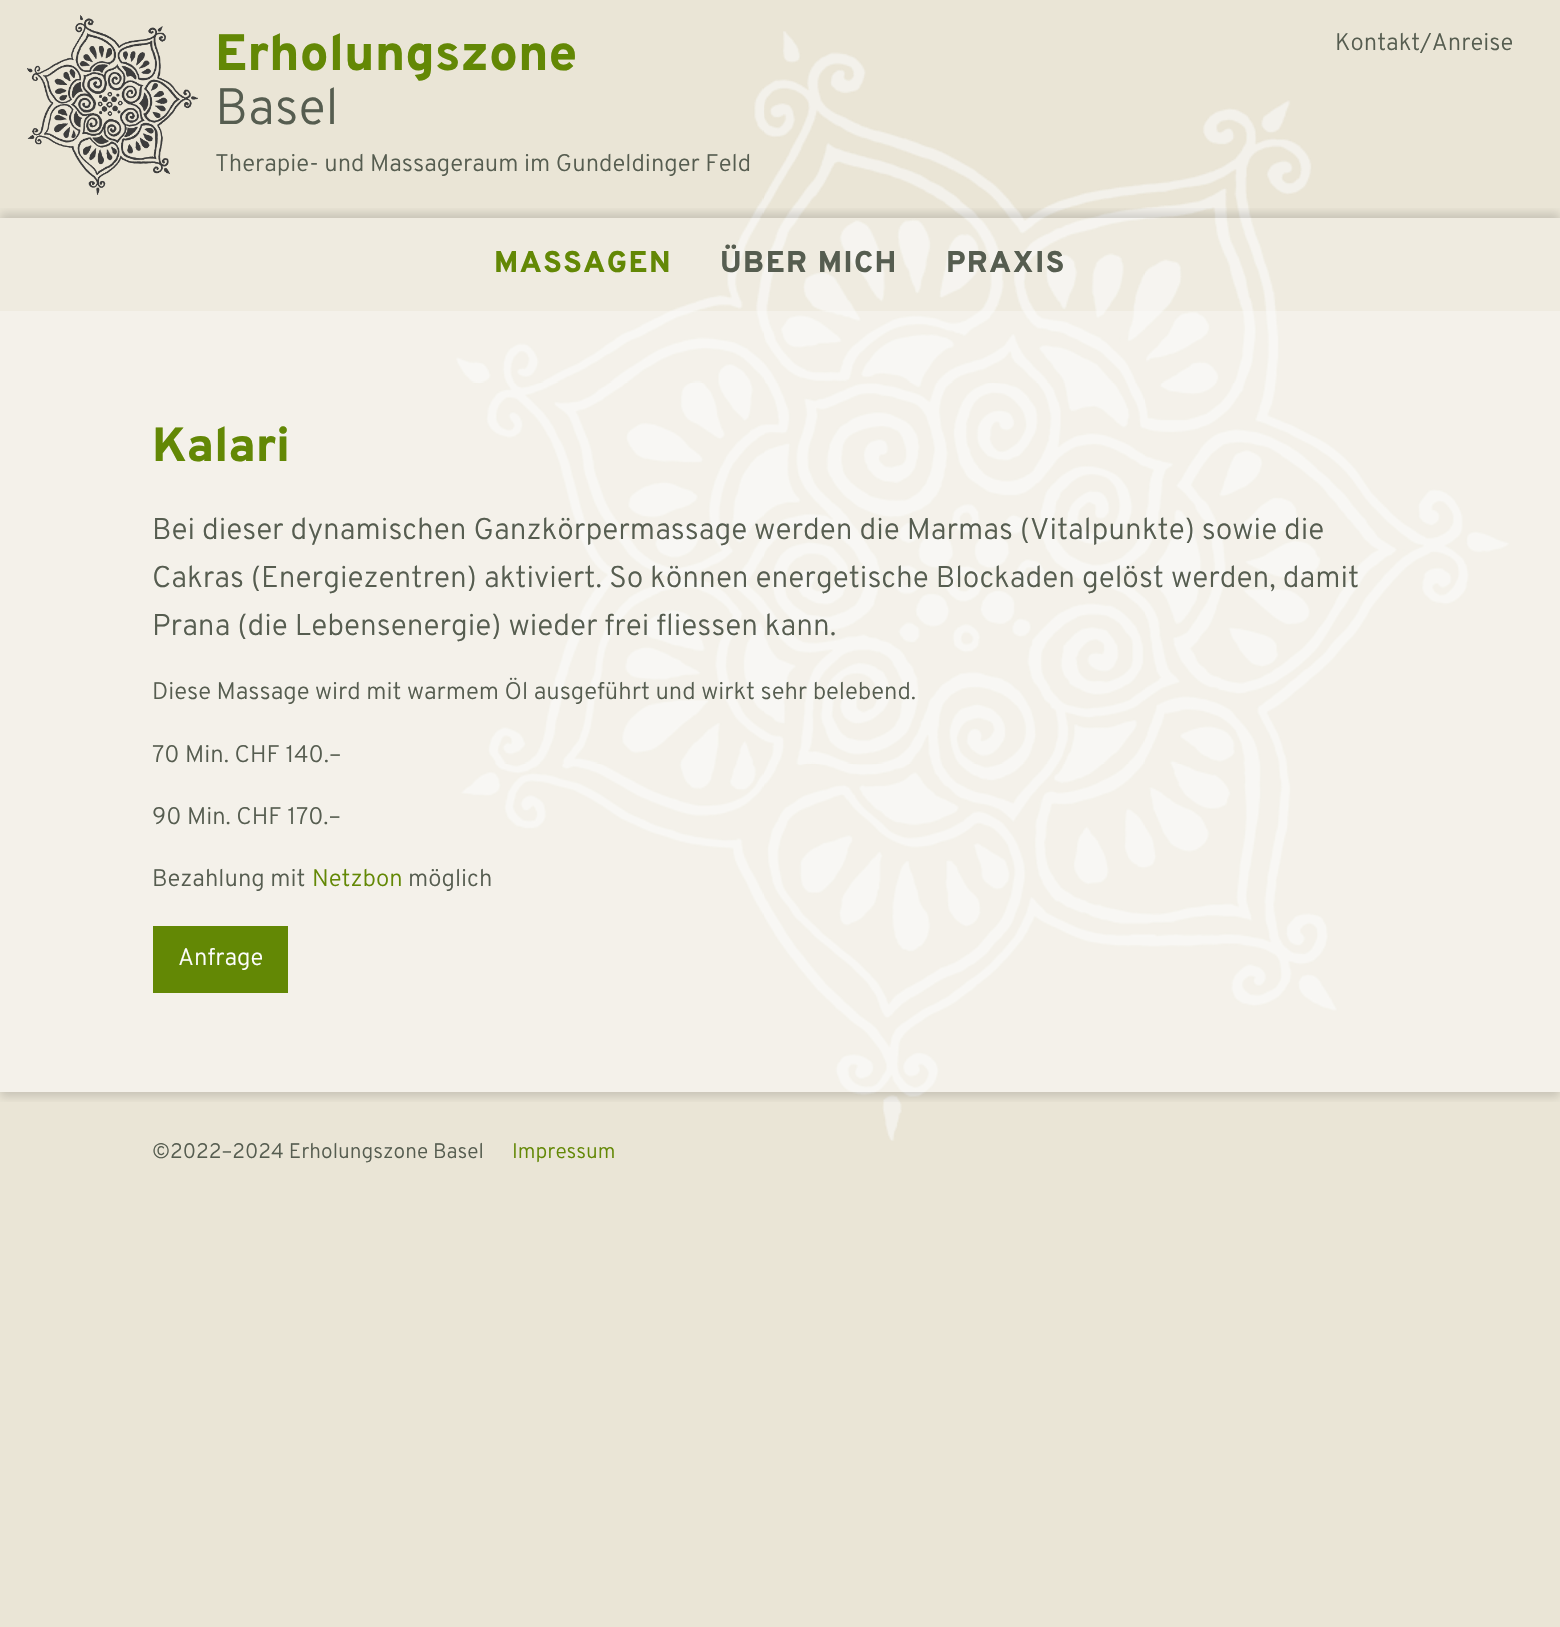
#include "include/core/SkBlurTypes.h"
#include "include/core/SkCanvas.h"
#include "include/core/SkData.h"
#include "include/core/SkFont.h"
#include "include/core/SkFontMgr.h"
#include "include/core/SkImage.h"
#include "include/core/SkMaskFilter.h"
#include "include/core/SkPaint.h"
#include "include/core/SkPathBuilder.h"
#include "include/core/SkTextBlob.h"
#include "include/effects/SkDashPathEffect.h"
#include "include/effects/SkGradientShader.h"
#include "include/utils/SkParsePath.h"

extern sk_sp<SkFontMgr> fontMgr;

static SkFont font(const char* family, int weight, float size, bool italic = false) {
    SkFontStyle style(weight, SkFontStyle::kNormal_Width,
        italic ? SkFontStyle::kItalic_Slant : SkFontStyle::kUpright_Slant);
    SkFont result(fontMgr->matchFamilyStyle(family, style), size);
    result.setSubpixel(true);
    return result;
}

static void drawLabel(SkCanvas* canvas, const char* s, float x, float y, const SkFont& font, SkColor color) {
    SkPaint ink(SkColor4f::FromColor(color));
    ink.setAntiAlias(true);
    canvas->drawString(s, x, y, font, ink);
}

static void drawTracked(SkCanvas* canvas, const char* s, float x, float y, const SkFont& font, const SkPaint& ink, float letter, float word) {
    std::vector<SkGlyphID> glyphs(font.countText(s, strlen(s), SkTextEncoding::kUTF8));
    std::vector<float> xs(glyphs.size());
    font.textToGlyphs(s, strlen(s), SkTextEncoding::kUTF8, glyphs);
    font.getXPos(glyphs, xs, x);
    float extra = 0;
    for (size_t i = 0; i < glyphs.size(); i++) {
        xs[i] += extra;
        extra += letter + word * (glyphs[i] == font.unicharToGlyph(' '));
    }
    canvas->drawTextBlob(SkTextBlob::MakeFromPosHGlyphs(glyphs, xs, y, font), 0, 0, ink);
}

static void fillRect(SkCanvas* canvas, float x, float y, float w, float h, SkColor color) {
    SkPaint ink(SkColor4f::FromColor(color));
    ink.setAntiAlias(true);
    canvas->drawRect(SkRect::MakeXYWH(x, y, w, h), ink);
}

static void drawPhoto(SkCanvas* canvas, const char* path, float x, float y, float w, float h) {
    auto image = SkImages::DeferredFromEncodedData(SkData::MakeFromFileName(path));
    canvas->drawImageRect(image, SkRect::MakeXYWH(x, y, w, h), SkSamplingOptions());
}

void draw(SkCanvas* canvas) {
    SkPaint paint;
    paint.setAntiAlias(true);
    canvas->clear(0xFFEAE5D6);
    drawPhoto(canvas, "assets/img1.png", 456, 31, 1053, 1110);
    drawPhoto(canvas, "assets/img2.png", 27, 15, 171, 180);
    SkFont font1 = font("Overpass", 800, 51);
    drawLabel(canvas, "Erholungszone", 215, 70, font1, 0xFF638805);
    SkFont font2 = font("Overpass", 300, 51);
    drawLabel(canvas, "Basel", 215, 124, font2, 0xFF565D50);
    SkFont font3 = font("Overpass", 300, 24);
    drawLabel(canvas, "Therapie- und Massageraum im Gundeldinger Feld", 215, 171, font3, 0xFF565D50);
    drawLabel(canvas, "Kontakt/Anreise", 1335, 50, font3, 0xFF565D50);
    canvas->save();
    canvas->clipRect(SkRect::MakeXYWH(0, 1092, 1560, 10));
    paint.setColor(0x260A0A0A);
    paint.setMaskFilter(SkMaskFilter::MakeBlur(kNormal_SkBlurStyle, 4.5f));
    canvas->drawRect(SkRect::MakeXYWH(0, 315, 1560, 782), paint);
    paint.setMaskFilter(nullptr);
    canvas->restore();
    fillRect(canvas, 0, 311, 1560, 781, 0x80FEFEFE);
    canvas->save();
    canvas->clipRect(SkRect::MakeXYWH(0, 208, 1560, 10));
    paint.setMaskFilter(SkMaskFilter::MakeBlur(kNormal_SkBlurStyle, 4.5f));
    canvas->drawRect(SkRect::MakeXYWH(0, 213, 1560, 93), paint);
    paint.setMaskFilter(nullptr);
    canvas->restore();
    fillRect(canvas, 0, 218, 1560, 93, 0x40FEFEFE);
    SkFont font4 = font("Overpass", 800, 30);
    paint.setColor(0xFF638805);
    drawTracked(canvas, "MASSAGEN", 494, 272, font4, paint, 1.5f, 0);
    paint.setColor(0xFF565D50);
    drawTracked(canvas, "ÜBER MICH", 720, 272, font4, paint, 1.5f, 0);
    drawTracked(canvas, "PRAXIS", 946, 272, font4, paint, 1.5f, 0);
    SkFont font5 = font("Overpass", 800, 48);
    drawLabel(canvas, "Kalari", 152, 461, font5, 0xFF638805);
    SkFont font6 = font("Overpass", 300, 30);
    drawLabel(canvas, "Bei dieser dynamischen Ganzkörpermassage werden die Marmas (Vitalpunkte) sowie die", 152, 539, font6, 0xFF565D50);
    drawLabel(canvas, "Cakras (Energiezentren) aktiviert. So können energetische Blockaden gelöst werden, damit", 152, 587, font6, 0xFF565D50);
    drawLabel(canvas, "Prana (die Lebensenergie) wieder frei fliessen kann.", 152, 635, font6, 0xFF565D50);
    drawLabel(canvas, "Diese Massage wird mit warmem Öl ausgeführt und wirkt sehr belebend.", 152, 699, font3, 0xFF565D50);
    drawLabel(canvas, "70 Min. CHF 140.–", 152, 762, font3, 0xFF565D50);
    drawLabel(canvas, "90 Min. CHF 170.–", 152, 824, font3, 0xFF565D50);
    drawLabel(canvas, "Bezahlung mit", 152, 886, font3, 0xFF565D50);
    drawLabel(canvas, "Netzbon", 312, 886, font3, 0xFF638805);
    drawLabel(canvas, "möglich", 408, 886, font3, 0xFF565D50);
    fillRect(canvas, 153, 926, 135, 67, 0xFF638805);
    drawLabel(canvas, "Anfrage", 178, 965, font3, 0xFFFEFEFE);
    SkFont font7 = font("Overpass", 300, 21);
    drawLabel(canvas, "©2022–2024 Erholungszone Basel", 152, 1158, font7, 0xFF565D50);
    drawLabel(canvas, "Impressum", 512, 1158, font7, 0xFF638805);
}
